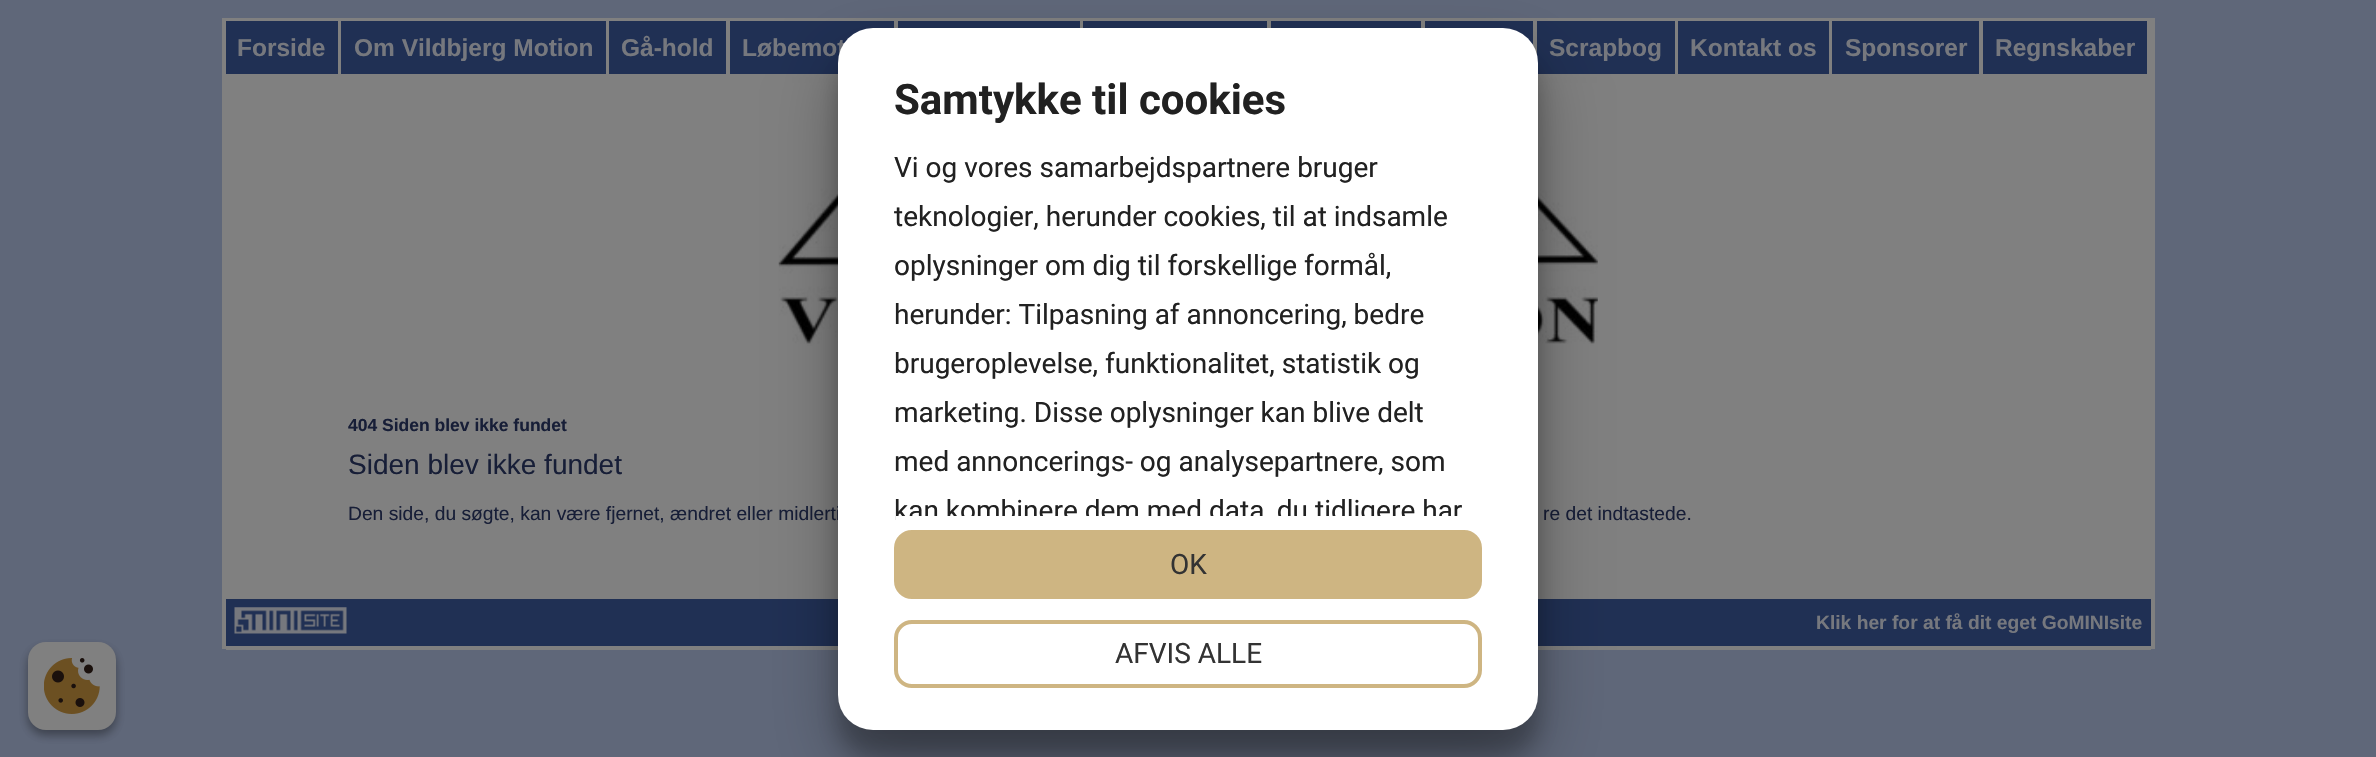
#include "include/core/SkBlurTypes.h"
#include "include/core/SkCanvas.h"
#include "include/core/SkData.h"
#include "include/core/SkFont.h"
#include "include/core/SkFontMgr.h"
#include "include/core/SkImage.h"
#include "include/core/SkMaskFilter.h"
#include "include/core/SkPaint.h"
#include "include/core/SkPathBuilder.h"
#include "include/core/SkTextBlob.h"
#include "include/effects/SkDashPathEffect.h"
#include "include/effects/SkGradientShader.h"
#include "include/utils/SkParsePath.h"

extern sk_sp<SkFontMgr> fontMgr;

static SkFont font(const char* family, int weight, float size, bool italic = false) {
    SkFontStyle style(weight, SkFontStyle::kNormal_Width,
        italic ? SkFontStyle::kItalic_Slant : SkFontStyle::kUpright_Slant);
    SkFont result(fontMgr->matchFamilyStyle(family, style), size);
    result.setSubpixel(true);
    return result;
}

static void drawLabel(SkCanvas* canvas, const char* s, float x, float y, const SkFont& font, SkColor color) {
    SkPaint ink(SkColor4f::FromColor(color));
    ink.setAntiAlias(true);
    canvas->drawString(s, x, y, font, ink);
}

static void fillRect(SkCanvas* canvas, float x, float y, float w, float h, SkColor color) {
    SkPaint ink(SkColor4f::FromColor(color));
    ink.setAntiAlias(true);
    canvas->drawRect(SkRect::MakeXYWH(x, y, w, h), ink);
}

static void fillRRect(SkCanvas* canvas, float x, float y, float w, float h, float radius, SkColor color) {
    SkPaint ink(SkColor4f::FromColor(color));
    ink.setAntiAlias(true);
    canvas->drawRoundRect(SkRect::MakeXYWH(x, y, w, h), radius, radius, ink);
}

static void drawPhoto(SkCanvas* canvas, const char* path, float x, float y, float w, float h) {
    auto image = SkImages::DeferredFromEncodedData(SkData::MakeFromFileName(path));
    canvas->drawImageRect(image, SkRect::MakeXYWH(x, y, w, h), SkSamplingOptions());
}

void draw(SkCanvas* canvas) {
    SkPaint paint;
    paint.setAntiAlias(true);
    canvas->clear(0xFF5F6779);
    fillRect(canvas, 222, 18, 1933, 631, 0xFF808080);
    fillRect(canvas, 226, 649, 1925, 1, 0xFF808080);
    fillRect(canvas, 226, 21, 1921, 53, 0xFF203054);
    fillRect(canvas, 338, 21, 3, 53, 0xFF808080);
    SkFont font1 = font("Liberation Sans", 700, 24.5f);
    drawLabel(canvas, "Forside", 237, 56, font1, 0xFF76787E);
    fillRect(canvas, 606, 21, 3, 53, 0xFF808080);
    drawLabel(canvas, "Om Vildbjerg Motion", 354, 56, font1, 0xFF76787E);
    fillRect(canvas, 726, 21, 4, 53, 0xFF808080);
    drawLabel(canvas, "Gå-hold", 621, 56, font1, 0xFF76787E);
    fillRect(canvas, 894, 21, 4, 7, 0xFF808080);
    drawLabel(canvas, "Løbemot", 742, 56, font1, 0xFF76787E);
    fillRect(canvas, 1080, 21, 3, 7, 0xFF808080);
    fillRect(canvas, 1267, 21, 4, 7, 0xFF808080);
    fillRect(canvas, 1421, 21, 4, 7, 0xFF808080);
    fillRect(canvas, 1533, 21, 4, 34, 0xFF808080);
    fillRect(canvas, 1675, 21, 3, 53, 0xFF808080);
    drawLabel(canvas, "Scrapbog", 1549, 56, font1, 0xFF76787E);
    fillRect(canvas, 1829, 21, 3, 53, 0xFF808080);
    drawLabel(canvas, "Kontakt os", 1690, 56, font1, 0xFF76787E);
    fillRect(canvas, 1979, 21, 4, 53, 0xFF808080);
    drawLabel(canvas, "Sponsorer", 1845, 56, font1, 0xFF76787E);
    drawLabel(canvas, "Regnskaber", 1995, 56, font1, 0xFF76787E);
    drawPhoto(canvas, "assets/img1.png", 778, 77, 820, 269);
    SkFont font2 = font("Liberation Sans", 700, 17.5f);
    drawLabel(canvas, "404 Siden blev ikke fundet", 348, 431, font2, 0xFF171E37);
    SkFont font3 = font("Liberation Sans", 400, 28);
    drawLabel(canvas, "Siden blev ikke fundet", 348, 474, font3, 0xFF171E37);
    SkFont font4 = font("Liberation Sans", 400, 19.25f);
    drawLabel(canvas, "Den side, du søgte, kan være fjernet, ændret eller midlerti", 348, 520, font4, 0xFF171E37);
    drawLabel(canvas, "re det indtastede.", 1543, 520, font4, 0xFF171E37);
    fillRect(canvas, 226, 599, 1925, 47, 0xFF203054);
    drawPhoto(canvas, "assets/img2.png", 234, 607, 113, 27);
    SkFont font5 = font("Liberation Sans", 700, 19.25f);
    drawLabel(canvas, "Klik her for at få dit eget GoMINIsite", 1816, 629, font5, 0xFF76787E);
    paint.setColor(0x38000000);
    paint.setMaskFilter(SkMaskFilter::MakeBlur(kNormal_SkBlurStyle, 10.5f));
    canvas->drawRoundRect(SkRect::MakeXYWH(838, 54, 700, 702), 35, 35, paint);
    paint.setMaskFilter(nullptr);
    paint.setColor(0x4D000000);
    paint.setMaskFilter(SkMaskFilter::MakeBlur(kNormal_SkBlurStyle, 33));
    canvas->drawRoundRect(SkRect::MakeXYWH(838, 61, 700, 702), 35, 35, paint);
    paint.setMaskFilter(nullptr);
    fillRRect(canvas, 838, 28, 700, 702, 35, 0xFFFFFFFF);
    SkFont font6 = font("Roboto", 700, 42);
    drawLabel(canvas, "Samtykke til cookies", 894, 114, font6, 0xFF212121);
    SkFont font7 = font("Roboto", 400, 28);
    drawLabel(canvas, "Vi og vores samarbejdspartnere bruger", 894, 177, font7, 0xFF212121);
    drawLabel(canvas, "teknologier, herunder cookies, til at indsamle", 894, 226, font7, 0xFF212121);
    drawLabel(canvas, "oplysninger om dig til forskellige formål,", 894, 275, font7, 0xFF212121);
    drawLabel(canvas, "herunder: Tilpasning af annoncering, bedre", 894, 324, font7, 0xFF212121);
    drawLabel(canvas, "brugeroplevelse, funktionalitet, statistik og", 894, 373, font7, 0xFF212121);
    drawLabel(canvas, "marketing. Disse oplysninger kan blive delt", 894, 422, font7, 0xFF212121);
    drawLabel(canvas, "med annoncerings- og analysepartnere, som", 894, 471, font7, 0xFF212121);
    drawLabel(canvas, "kan kombinere dem med data, du tidligere har", 894, 520, font7, 0xFF212121);
    fillRect(canvas, 896, 516, 562, 10, 0xFFFFFFFF);
    paint.setColor(0xFFCEB582);
    canvas->drawRoundRect(SkRect::MakeXYWH(896, 532, 584, 65), 16, 16, paint);
    paint.setStroke(true);
    paint.setStrokeWidth(4);
    canvas->drawRoundRect(SkRect::MakeXYWH(896, 532, 584, 65), 16, 16, paint);
    drawLabel(canvas, "OK", 1170, 574, font7, 0xFF333333);
    canvas->drawRoundRect(SkRect::MakeXYWH(896, 622, 584, 64), 16, 16, paint);
    drawLabel(canvas, "AFVIS ALLE", 1115, 663, font7, 0xFF333333);
    paint.setStroke(false);
    paint.setColor(0x3B000000);
    paint.setMaskFilter(SkMaskFilter::MakeBlur(kNormal_SkBlurStyle, 5));
    canvas->drawRoundRect(SkRect::MakeXYWH(28, 648, 88, 87), 18, 18, paint);
    paint.setMaskFilter(nullptr);
    paint.setColor(0x29000000);
    paint.setMaskFilter(SkMaskFilter::MakeBlur(kNormal_SkBlurStyle, 5));
    canvas->drawRoundRect(SkRect::MakeXYWH(28, 648, 88, 87), 18, 18, paint);
    paint.setMaskFilter(nullptr);
    fillRRect(canvas, 28, 642, 88, 88, 18, 0xFF808080);
    drawPhoto(canvas, "assets/img3.png", 44, 658, 56, 56);
}
